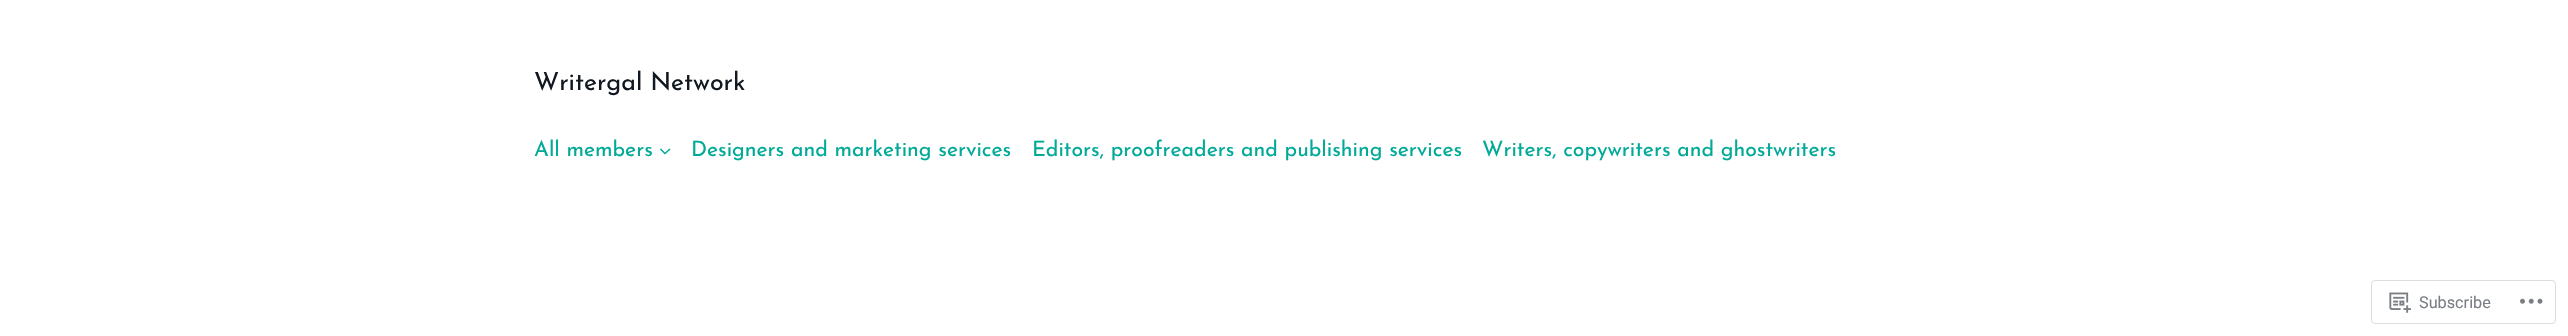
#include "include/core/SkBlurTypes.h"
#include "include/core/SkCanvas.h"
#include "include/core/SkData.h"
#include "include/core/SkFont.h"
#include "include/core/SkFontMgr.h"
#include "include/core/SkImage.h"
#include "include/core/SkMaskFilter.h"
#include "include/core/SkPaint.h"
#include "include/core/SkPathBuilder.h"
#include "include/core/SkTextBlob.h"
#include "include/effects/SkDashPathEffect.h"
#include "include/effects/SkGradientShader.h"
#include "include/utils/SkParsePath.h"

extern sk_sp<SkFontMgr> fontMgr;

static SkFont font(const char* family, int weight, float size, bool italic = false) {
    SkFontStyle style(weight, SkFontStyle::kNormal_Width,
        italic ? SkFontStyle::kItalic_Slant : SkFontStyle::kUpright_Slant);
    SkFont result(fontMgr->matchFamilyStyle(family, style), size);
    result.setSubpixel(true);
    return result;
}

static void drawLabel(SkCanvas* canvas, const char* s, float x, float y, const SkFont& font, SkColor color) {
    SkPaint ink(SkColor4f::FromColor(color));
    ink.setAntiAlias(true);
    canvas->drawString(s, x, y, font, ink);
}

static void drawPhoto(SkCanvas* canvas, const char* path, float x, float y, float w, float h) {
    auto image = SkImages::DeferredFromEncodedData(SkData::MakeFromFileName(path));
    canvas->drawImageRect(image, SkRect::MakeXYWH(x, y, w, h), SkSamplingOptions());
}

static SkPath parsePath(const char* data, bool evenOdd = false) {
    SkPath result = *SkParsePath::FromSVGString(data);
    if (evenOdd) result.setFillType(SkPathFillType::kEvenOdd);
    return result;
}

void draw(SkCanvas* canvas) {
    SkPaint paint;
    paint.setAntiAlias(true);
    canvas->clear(0xFFFFFFFF);
    SkFont font1 = font("Josefin Sans", 400, 25);
    drawLabel(canvas, "Writergal Network", 534, 90, font1, 0xFF11181F);
    SkFont font2 = font("Josefin Sans", 400, 21.25f);
    drawLabel(canvas, "All members", 534, 156, font2, 0xFF00A998);
    paint.setStroke(true);
    paint.setStrokeWidth(1.6f);
    paint.setColor(0xFF00A998);
    canvas->drawPath(parsePath("M660.5 149L665 153.5L670 149"), paint);
    drawLabel(canvas, "Designers and marketing services", 691, 156, font2, 0xFF00A998);
    drawLabel(canvas, "Editors, proofreaders and publishing services", 1032, 156, font2, 0xFF00A998);
    drawLabel(canvas, "Writers, copywriters and ghostwriters", 1482, 156, font2, 0xFF00A998);
    paint.setStrokeWidth(1);
    paint.setColor(0xFFDDDDDF);
    canvas->drawRoundRect(SkRect::MakeXYWH(2371.5f, 280.5f, 184, 43), 3.5f, 3.5f, paint);
    drawPhoto(canvas, "assets/img1.png", 2389, 292, 22, 21);
    SkFont font3 = font("Roboto", 400, 16.25f);
    drawLabel(canvas, "Subscribe", 2419, 308, font3, 0xFF7B7F85);
    drawPhoto(canvas, "assets/img2.png", 2520, 298, 23, 6);
}
